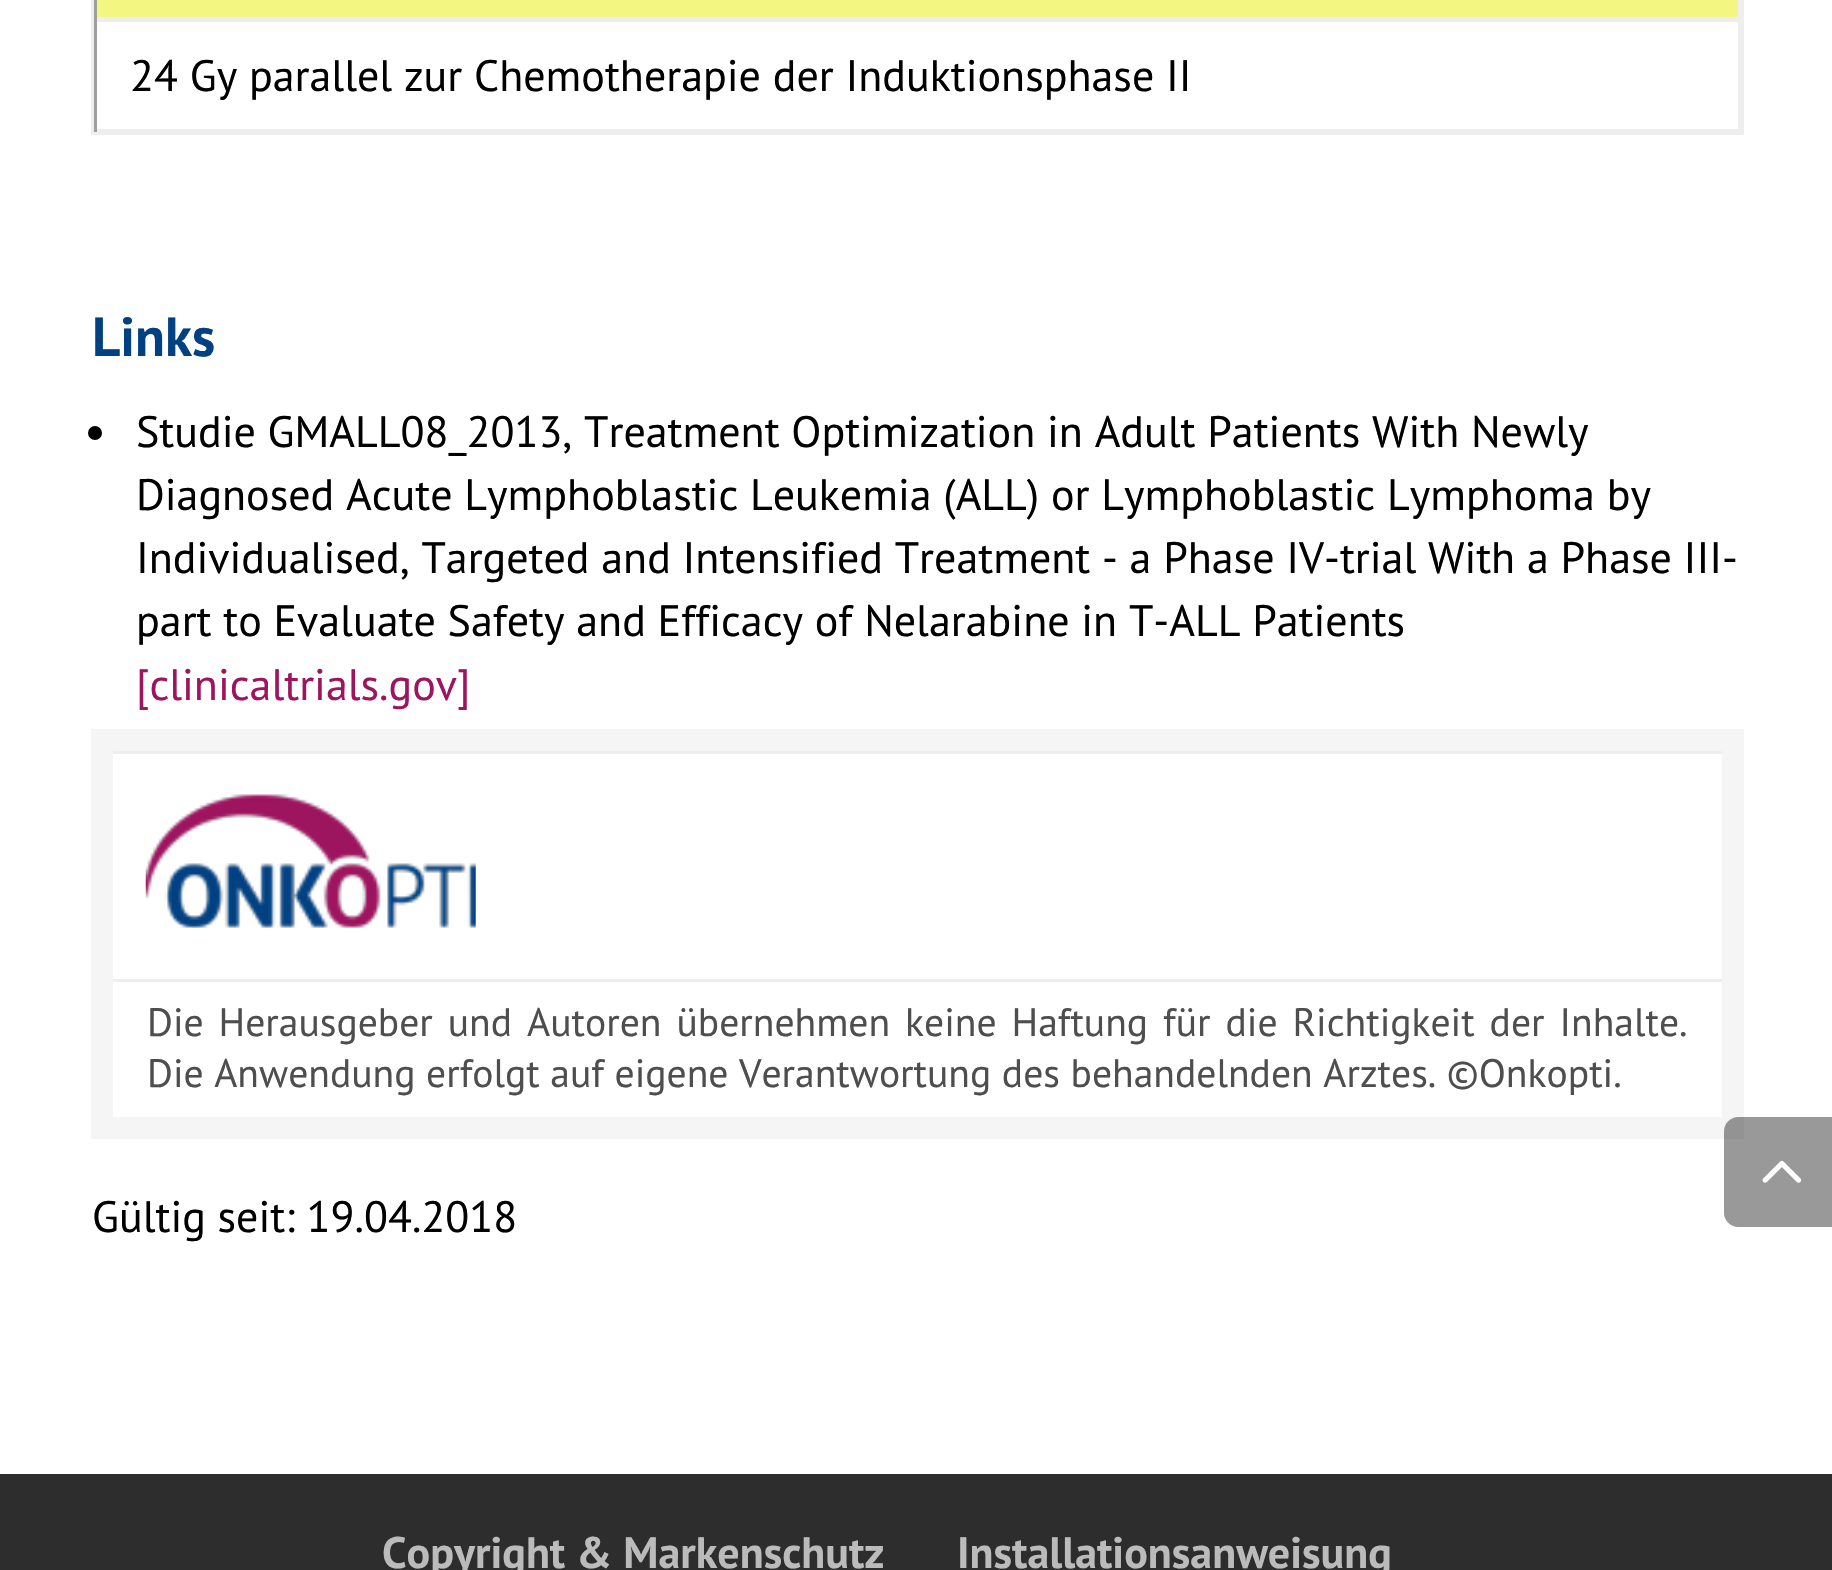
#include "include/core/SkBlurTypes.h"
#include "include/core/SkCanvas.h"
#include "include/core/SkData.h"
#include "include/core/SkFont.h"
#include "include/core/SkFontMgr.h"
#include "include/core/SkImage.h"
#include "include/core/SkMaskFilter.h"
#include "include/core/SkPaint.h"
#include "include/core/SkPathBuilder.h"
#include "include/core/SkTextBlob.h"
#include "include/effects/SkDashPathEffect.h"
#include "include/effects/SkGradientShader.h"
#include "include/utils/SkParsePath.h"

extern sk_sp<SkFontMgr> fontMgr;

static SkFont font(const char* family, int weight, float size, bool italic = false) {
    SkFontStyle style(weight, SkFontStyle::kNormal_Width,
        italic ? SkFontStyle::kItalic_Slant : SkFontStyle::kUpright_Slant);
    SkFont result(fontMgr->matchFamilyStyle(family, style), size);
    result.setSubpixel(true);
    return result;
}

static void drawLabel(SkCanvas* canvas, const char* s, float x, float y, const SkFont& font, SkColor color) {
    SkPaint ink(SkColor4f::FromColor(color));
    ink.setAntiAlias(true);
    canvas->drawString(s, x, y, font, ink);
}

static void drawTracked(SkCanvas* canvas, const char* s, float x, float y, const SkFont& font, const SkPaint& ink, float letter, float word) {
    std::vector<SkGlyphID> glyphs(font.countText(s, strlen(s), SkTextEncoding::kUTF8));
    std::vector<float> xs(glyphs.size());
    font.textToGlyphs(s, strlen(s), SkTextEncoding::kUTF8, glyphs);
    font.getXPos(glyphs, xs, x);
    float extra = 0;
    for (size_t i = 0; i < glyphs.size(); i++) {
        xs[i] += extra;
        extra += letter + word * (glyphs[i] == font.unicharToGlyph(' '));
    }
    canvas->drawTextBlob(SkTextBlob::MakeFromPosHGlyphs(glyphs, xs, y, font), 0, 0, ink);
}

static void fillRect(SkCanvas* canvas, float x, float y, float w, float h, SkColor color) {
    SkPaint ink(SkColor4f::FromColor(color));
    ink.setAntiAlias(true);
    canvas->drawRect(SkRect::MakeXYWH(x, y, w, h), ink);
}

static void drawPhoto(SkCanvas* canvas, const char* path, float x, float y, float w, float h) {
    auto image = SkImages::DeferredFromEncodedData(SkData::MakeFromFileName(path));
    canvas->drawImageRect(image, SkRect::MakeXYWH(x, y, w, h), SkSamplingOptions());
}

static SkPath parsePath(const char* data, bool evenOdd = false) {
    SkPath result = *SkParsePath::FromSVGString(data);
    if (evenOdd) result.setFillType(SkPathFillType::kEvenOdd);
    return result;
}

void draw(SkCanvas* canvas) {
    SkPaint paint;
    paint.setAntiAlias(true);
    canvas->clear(0xFFFFFFFF);
    paint.setStroke(true);
    paint.setStrokeWidth(3);
    paint.setColor(0xFFEEEEEE);
    canvas->drawRect(SkRect::MakeXYWH(92.5f, -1.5f, 1650, 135), paint);
    fillRect(canvas, 97, 0, 1641, 17, 0xFFF3F781);
    fillRect(canvas, 1738, 0, 3, 19, 0xFFEEEEEE);
    fillRect(canvas, 94, 17, 1647, 5, 0xFFEEEEEE);
    fillRect(canvas, 94, 0, 3, 19, 0xFF9F9F9F);
    fillRect(canvas, 1738, 19, 3, 113, 0xFFEEEEEE);
    fillRect(canvas, 94, 129, 1647, 3, 0xFFEEEEEE);
    fillRect(canvas, 94, 19, 3, 113, 0xFF9F9F9F);
    SkFont font1 = font("PT Sans", 400, 44);
    drawLabel(canvas, "24 Gy parallel zur Chemotherapie der Induktionsphase II", 130, 91, font1, 0xFF000000);
    SkFont font2 = font("PT Sans", 700, 55);
    drawLabel(canvas, "Links", 92, 356, font2, 0xFF014182);
    paint.setStroke(false);
    paint.setColor(0xFF000000);
    canvas->drawCircle(95, 433, 7, paint);
    drawLabel(canvas, "Studie GMALL08_2013, Treatment Optimization in Adult Patients With Newly", 136, 447, font1, 0xFF000000);
    drawLabel(canvas, "Diagnosed Acute Lymphoblastic Leukemia (ALL) or Lymphoblastic Lymphoma by", 136, 510, font1, 0xFF000000);
    drawLabel(canvas, "Individualised, Targeted and Intensified Treatment - a Phase IV-trial With a Phase III-", 136, 573, font1, 0xFF000000);
    drawLabel(canvas, "part to Evaluate Safety and Efficacy of Nelarabine in T-ALL Patients", 136, 636, font1, 0xFF000000);
    drawLabel(canvas, "[clinicaltrials.gov]", 136, 700, font1, 0xFF9D145F);
    paint.setStroke(true);
    paint.setStrokeWidth(22);
    paint.setColor(0xFFF5F5F5);
    canvas->drawRect(SkRect::MakeXYWH(102, 740, 1631, 388), paint);
    fillRect(canvas, 113, 751, 1609, 3, 0xFFEEEEEE);
    drawPhoto(canvas, "assets/img1.png", 145, 794, 331, 134);
    fillRect(canvas, 113, 979, 1609, 3, 0xFFEEEEEE);
    SkFont font3 = font("PT Sans", 400, 39.6f);
    paint.setStroke(false);
    paint.setColor(0xFF4E4E4E);
    drawTracked(canvas, "Die Herausgeber und Autoren übernehmen keine Haftung für die Richtigkeit der Inhalte.", 147, 1036, font3, paint, 0, 4.4f);
    drawLabel(canvas, "Die Anwendung erfolgt auf eigene Verantwortung des behandelnden Arztes. ©Onkopti.", 147, 1087, font3, 0xFF4E4E4E);
    drawLabel(canvas, "Gültig seit: 19.04.2018", 92, 1232, font1, 0xFF000000);
    paint.setColor(0x66000000);
    canvas->drawPath(parsePath("M1738 1117H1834V1227H1738C1730.5 1227 1724 1220.5 1724 1213V1131C1724 1123.5 1730.5 1117 1738 1117Z"), paint);
    drawPhoto(canvas, "assets/img2.png", 1762, 1160, 40, 23);
    fillRect(canvas, 0, 1474, 1832, 96, 0xFF2D2D2D);
    SkFont font4 = font("PT Sans", 700, 44);
    drawLabel(canvas, "Copyright & Markenschutz", 382, 1568, font4, 0xFFBBBBBB);
    drawLabel(canvas, "Installationsanweisung", 957, 1568, font4, 0xFFBBBBBB);
}
